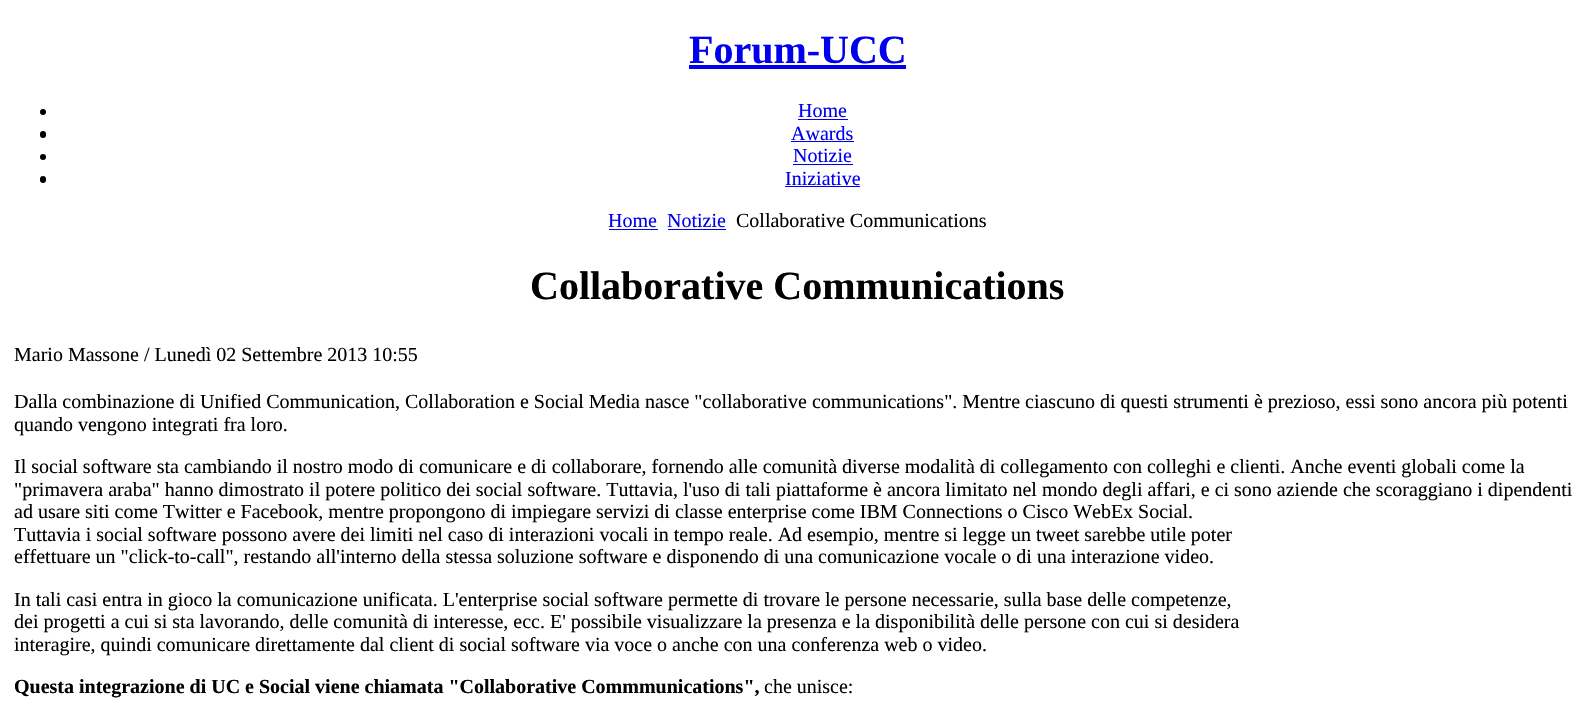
#include "include/core/SkBlurTypes.h"
#include "include/core/SkCanvas.h"
#include "include/core/SkData.h"
#include "include/core/SkFont.h"
#include "include/core/SkFontMgr.h"
#include "include/core/SkImage.h"
#include "include/core/SkMaskFilter.h"
#include "include/core/SkPaint.h"
#include "include/core/SkPathBuilder.h"
#include "include/core/SkTextBlob.h"
#include "include/effects/SkDashPathEffect.h"
#include "include/effects/SkGradientShader.h"
#include "include/utils/SkParsePath.h"

extern sk_sp<SkFontMgr> fontMgr;

static SkFont font(const char* family, int weight, float size, bool italic = false) {
    SkFontStyle style(weight, SkFontStyle::kNormal_Width,
        italic ? SkFontStyle::kItalic_Slant : SkFontStyle::kUpright_Slant);
    SkFont result(fontMgr->matchFamilyStyle(family, style), size);
    result.setSubpixel(true);
    return result;
}

static void drawLabel(SkCanvas* canvas, const char* s, float x, float y, const SkFont& font, SkColor color) {
    SkPaint ink(SkColor4f::FromColor(color));
    ink.setAntiAlias(true);
    canvas->drawString(s, x, y, font, ink);
}

static void fillRect(SkCanvas* canvas, float x, float y, float w, float h, SkColor color) {
    SkPaint ink(SkColor4f::FromColor(color));
    ink.setAntiAlias(true);
    canvas->drawRect(SkRect::MakeXYWH(x, y, w, h), ink);
}

static void fillRRect(SkCanvas* canvas, float x, float y, float w, float h, float radius, SkColor color) {
    SkPaint ink(SkColor4f::FromColor(color));
    ink.setAntiAlias(true);
    canvas->drawRoundRect(SkRect::MakeXYWH(x, y, w, h), radius, radius, ink);
}

void draw(SkCanvas* canvas) {
    SkPaint paint;
    paint.setAntiAlias(true);
    canvas->clear(0xFFFFFFFF);
    SkFont font1 = font("Liberation Serif", 700, 40);
    drawLabel(canvas, "Forum-UCC", 689, 63, font1, 0xFF0000EE);
    fillRect(canvas, 689, 65, 217, 4, 0xFF0000EE);
    paint.setColor(0xFF000000);
    canvas->drawCircle(43, 112, 3, paint);
    SkFont font2 = font("Liberation Serif", 400, 20);
    drawLabel(canvas, "Home", 798, 117, font2, 0xFF0000EE);
    fillRect(canvas, 798, 119, 50, 1, 0xFF0000EE);
    fillRRect(canvas, 40, 131, 6, 7, 3, 0xFF000000);
    drawLabel(canvas, "Awards", 791, 140, font2, 0xFF0000EE);
    fillRect(canvas, 791, 141, 63, 1, 0xFF0000EE);
    canvas->drawCircle(43, 157, 3, paint);
    drawLabel(canvas, "Notizie", 793, 162, font2, 0xFF0000EE);
    fillRect(canvas, 793, 164, 60, 1, 0xFF0000EE);
    fillRRect(canvas, 40, 176, 6, 7, 3, 0xFF000000);
    drawLabel(canvas, "Iniziative", 785, 185, font2, 0xFF0000EE);
    fillRect(canvas, 785, 186, 75, 1, 0xFF0000EE);
    drawLabel(canvas, "Home", 608, 227, font2, 0xFF0000EE);
    fillRect(canvas, 609, 229, 49, 1, 0xFF0000EE);
    drawLabel(canvas, "Notizie", 667, 227, font2, 0xFF0000EE);
    fillRect(canvas, 668, 229, 58, 1, 0xFF0000EE);
    drawLabel(canvas, "Collaborative Communications", 736, 227, font2, 0xFF000000);
    drawLabel(canvas, "Collaborative Communications", 530, 299, font1, 0xFF000000);
    drawLabel(canvas, "Mario Massone / Lunedì 02 Settembre 2013 10:55", 14, 361, font2, 0xFF000000);
    drawLabel(canvas, "Dalla combinazione di Unified Communication, Collaboration e Social Media nasce \"collaborative communications\". Mentre ciascuno di questi strumenti è prezioso, essi sono ancora più potenti", 14, 408, font2, 0xFF000000);
    drawLabel(canvas, "quando vengono integrati fra loro.", 14, 431, font2, 0xFF000000);
    drawLabel(canvas, "Il social software sta cambiando il nostro modo di comunicare e di collaborare, fornendo alle comunità diverse modalità di collegamento con colleghi e clienti. Anche eventi globali come la", 14, 473, font2, 0xFF000000);
    drawLabel(canvas, "\"primavera araba\" hanno dimostrato il potere politico dei social software. Tuttavia, l'uso di tali piattaforme è ancora limitato nel mondo degli affari, e ci sono aziende che scoraggiano i dipendenti", 14, 496, font2, 0xFF000000);
    drawLabel(canvas, "ad usare siti come Twitter e Facebook, mentre propongono di impiegare servizi di classe enterprise come IBM Connections o Cisco WebEx Social.", 14, 518, font2, 0xFF000000);
    drawLabel(canvas, "Tuttavia i social software possono avere dei limiti nel caso di interazioni vocali in tempo reale. Ad esempio, mentre si legge un tweet sarebbe utile poter", 14, 541, font2, 0xFF000000);
    drawLabel(canvas, "effettuare un \"click-to-call\", restando all'interno della stessa soluzione software e disponendo di una comunicazione vocale o di una interazione video.", 14, 563, font2, 0xFF000000);
    drawLabel(canvas, "In tali casi entra in gioco la comunicazione unificata. L'enterprise social software permette di trovare le persone necessarie, sulla base delle competenze,", 14, 606, font2, 0xFF000000);
    drawLabel(canvas, "dei progetti a cui si sta lavorando, delle comunità di interesse, ecc. E' possibile visualizzare la presenza e la disponibilità delle persone con cui si desidera", 14, 628, font2, 0xFF000000);
    drawLabel(canvas, "interagire, quindi comunicare direttamente dal client di social software via voce o anche con una conferenza web o video.", 14, 651, font2, 0xFF000000);
    SkFont font3 = font("Liberation Serif", 700, 20);
    drawLabel(canvas, "Questa integrazione di UC e Social viene chiamata \"Collaborative Commmunications\",", 14, 693, font3, 0xFF000000);
    drawLabel(canvas, "che unisce:", 764, 693, font2, 0xFF000000);
}
